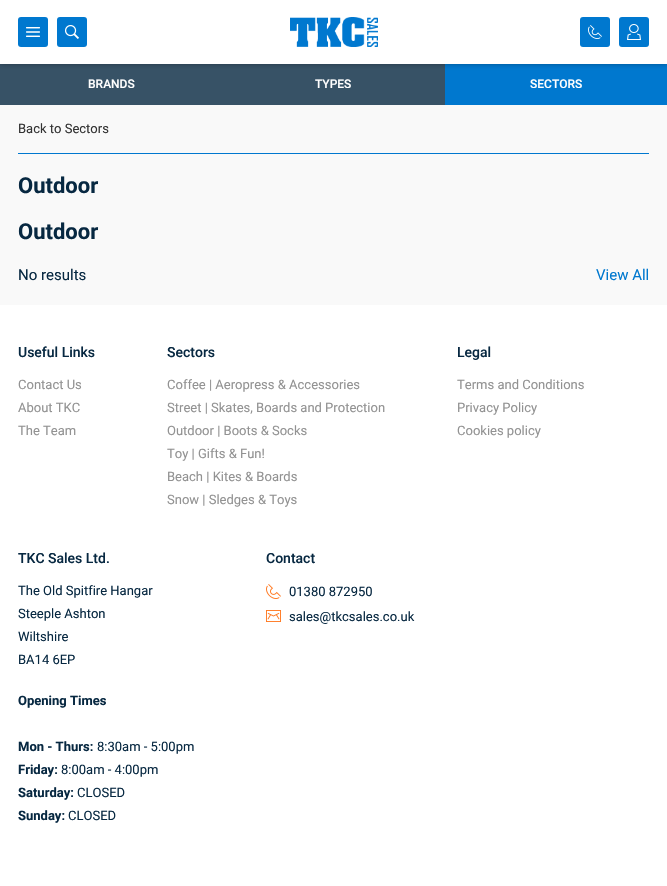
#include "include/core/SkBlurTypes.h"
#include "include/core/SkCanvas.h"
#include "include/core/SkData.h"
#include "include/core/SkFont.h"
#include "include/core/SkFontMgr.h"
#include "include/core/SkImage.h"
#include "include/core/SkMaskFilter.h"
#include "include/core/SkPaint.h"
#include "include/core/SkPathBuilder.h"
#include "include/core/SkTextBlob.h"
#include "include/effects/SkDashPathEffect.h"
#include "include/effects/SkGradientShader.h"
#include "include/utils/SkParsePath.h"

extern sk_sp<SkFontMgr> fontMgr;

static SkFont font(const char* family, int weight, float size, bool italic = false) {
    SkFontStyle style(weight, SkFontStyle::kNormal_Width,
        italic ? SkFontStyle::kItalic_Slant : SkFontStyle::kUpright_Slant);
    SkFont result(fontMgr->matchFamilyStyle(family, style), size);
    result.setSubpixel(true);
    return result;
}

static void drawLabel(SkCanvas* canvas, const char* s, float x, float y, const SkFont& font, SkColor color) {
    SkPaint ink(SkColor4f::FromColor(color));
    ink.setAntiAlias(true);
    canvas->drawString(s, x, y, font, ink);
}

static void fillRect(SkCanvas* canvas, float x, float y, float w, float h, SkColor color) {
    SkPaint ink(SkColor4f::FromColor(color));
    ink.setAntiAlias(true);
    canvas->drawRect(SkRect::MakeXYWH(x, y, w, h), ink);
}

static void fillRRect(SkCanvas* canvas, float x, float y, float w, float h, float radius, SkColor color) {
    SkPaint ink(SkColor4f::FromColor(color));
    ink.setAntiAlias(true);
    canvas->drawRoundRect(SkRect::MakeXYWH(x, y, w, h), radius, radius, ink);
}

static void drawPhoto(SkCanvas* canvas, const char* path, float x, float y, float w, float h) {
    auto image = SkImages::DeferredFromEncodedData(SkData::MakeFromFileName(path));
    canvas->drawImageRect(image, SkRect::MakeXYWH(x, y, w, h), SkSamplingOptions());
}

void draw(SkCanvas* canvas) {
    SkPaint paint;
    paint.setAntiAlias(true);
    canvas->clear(0xFFF9F9F9);
    fillRect(canvas, 0, 64, 445, 41, 0xFF375266);
    fillRect(canvas, 445, 64, 222, 41, 0xFF0078CF);
    paint.setColor(0x54000000);
    paint.setMaskFilter(SkMaskFilter::MakeBlur(kNormal_SkBlurStyle, 2.5f));
    canvas->drawRect(SkRect::MakeXYWH(0, 0, 667, 64), paint);
    paint.setMaskFilter(nullptr);
    fillRect(canvas, 0, 0, 667, 64, 0xFFFFFFFF);
    fillRRect(canvas, 18, 17, 30, 30, 3, 0xFF0078CF);
    drawPhoto(canvas, "assets/img1.png", 26, 27, 14, 10);
    fillRRect(canvas, 57, 17, 30, 30, 3, 0xFF0078CF);
    drawPhoto(canvas, "assets/img2.png", 65, 25, 14, 14);
    drawPhoto(canvas, "assets/img3.png", 290, 17, 88, 30);
    fillRRect(canvas, 580, 17, 30, 30, 3, 0xFF0078CF);
    drawPhoto(canvas, "assets/img4.png", 588, 25, 14, 14);
    fillRRect(canvas, 619, 17, 30, 30, 3, 0xFF0078CF);
    drawPhoto(canvas, "assets/img5.png", 627, 24, 14, 16);
    SkFont font1 = font("Roboto", 500, 12);
    drawLabel(canvas, "BRANDS", 88, 88, font1, 0xFFFFFFFF);
    drawLabel(canvas, "TYPES", 315, 88, font1, 0xFFFFFFFF);
    drawLabel(canvas, "SECTORS", 530, 88, font1, 0xFFFFFFFF);
    fillRect(canvas, 18, 153, 631, 1, 0xFF0078CF);
    SkFont font2 = font("Roboto", 400, 13);
    drawLabel(canvas, "Back to Sectors", 18, 133, font2, 0xFF333333);
    SkFont font3 = font("Roboto", 700, 22);
    drawLabel(canvas, "Outdoor", 18, 193, font3, 0xFF072841);
    drawLabel(canvas, "Outdoor", 18, 239, font3, 0xFF072841);
    SkFont font4 = font("Roboto", 400, 15);
    drawLabel(canvas, "No results", 18, 280, font4, 0xFF072841);
    drawLabel(canvas, "View All", 596, 280, font4, 0xFF0078CF);
    fillRect(canvas, 0, 305, 667, 581, 0xFFFFFFFF);
    SkFont font5 = font("Roboto", 500, 14);
    drawLabel(canvas, "Useful Links", 18, 357, font5, 0xFF072841);
    drawLabel(canvas, "Contact Us", 18, 389, font2, 0xFF929292);
    drawLabel(canvas, "About TKC", 18, 412, font2, 0xFF929292);
    drawLabel(canvas, "The Team", 18, 435, font2, 0xFF929292);
    drawLabel(canvas, "Sectors", 167, 357, font5, 0xFF072841);
    drawLabel(canvas, "Coffee | Aeropress & Accessories", 167, 389, font2, 0xFF929292);
    drawLabel(canvas, "Street | Skates, Boards and Protection", 167, 412, font2, 0xFF929292);
    drawLabel(canvas, "Outdoor | Boots & Socks", 167, 435, font2, 0xFF929292);
    drawLabel(canvas, "Toy | Gifts & Fun!", 167, 458, font2, 0xFF929292);
    drawLabel(canvas, "Beach | Kites & Boards", 167, 481, font2, 0xFF929292);
    drawLabel(canvas, "Snow | Sledges & Toys", 167, 504, font2, 0xFF929292);
    drawLabel(canvas, "Legal", 457, 357, font5, 0xFF072841);
    drawLabel(canvas, "Terms and Conditions", 457, 389, font2, 0xFF929292);
    drawLabel(canvas, "Privacy Policy", 457, 412, font2, 0xFF929292);
    drawLabel(canvas, "Cookies policy", 457, 435, font2, 0xFF929292);
    drawLabel(canvas, "TKC Sales Ltd.", 18, 563, font5, 0xFF072841);
    drawLabel(canvas, "The Old Spitfire Hangar", 18, 595, font2, 0xFF072841);
    drawLabel(canvas, "Steeple Ashton", 18, 618, font2, 0xFF072841);
    drawLabel(canvas, "Wiltshire", 18, 641, font2, 0xFF072841);
    drawLabel(canvas, "BA14 6EP", 18, 664, font2, 0xFF072841);
    SkFont font6 = font("Roboto", 700, 13);
    drawLabel(canvas, "Opening Times", 18, 705, font6, 0xFF072841);
    drawLabel(canvas, "Mon - Thurs:", 18, 751, font6, 0xFF072841);
    drawLabel(canvas, "8:30am - 5:00pm", 97, 751, font2, 0xFF072841);
    drawLabel(canvas, "Friday:", 18, 774, font6, 0xFF072841);
    drawLabel(canvas, "8:00am - 4:00pm", 61, 774, font2, 0xFF072841);
    drawLabel(canvas, "Saturday:", 18, 797, font6, 0xFF072841);
    drawLabel(canvas, "CLOSED", 77, 797, font2, 0xFF072841);
    drawLabel(canvas, "Sunday:", 18, 820, font6, 0xFF072841);
    drawLabel(canvas, "CLOSED", 68, 820, font2, 0xFF072841);
    drawLabel(canvas, "Contact", 266, 563, font5, 0xFF072841);
    drawPhoto(canvas, "assets/img6.png", 266, 584, 15, 15);
    drawLabel(canvas, "01380 872950", 289, 596, font2, 0xFF072841);
    drawPhoto(canvas, "assets/img7.png", 266, 610, 15, 12);
    drawLabel(canvas, "sales@tkcsales.co.uk", 289, 621, font2, 0xFF072841);
}
